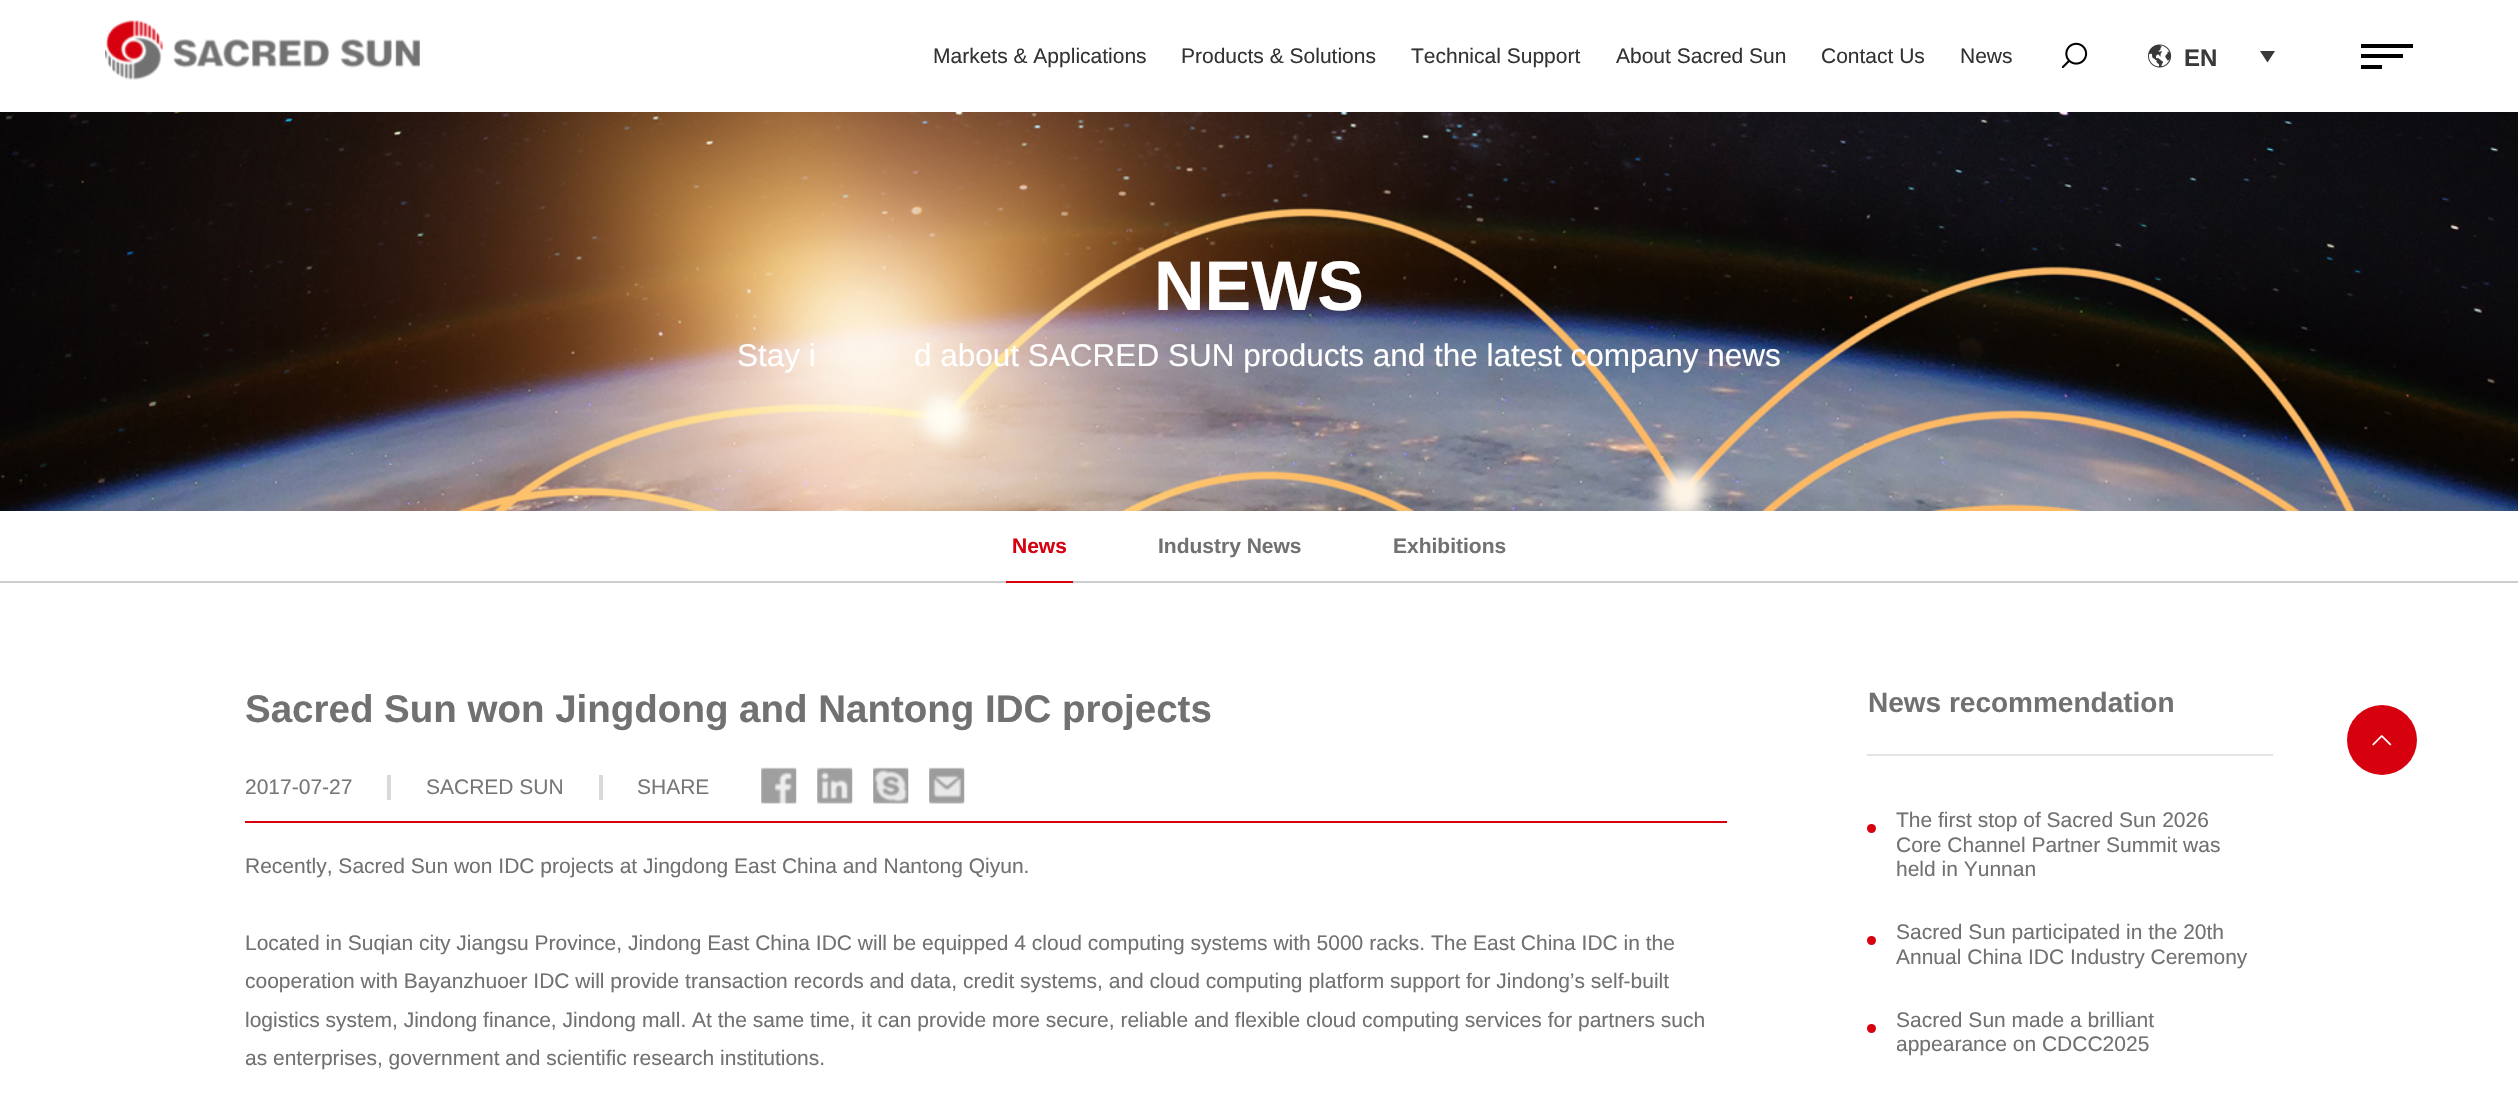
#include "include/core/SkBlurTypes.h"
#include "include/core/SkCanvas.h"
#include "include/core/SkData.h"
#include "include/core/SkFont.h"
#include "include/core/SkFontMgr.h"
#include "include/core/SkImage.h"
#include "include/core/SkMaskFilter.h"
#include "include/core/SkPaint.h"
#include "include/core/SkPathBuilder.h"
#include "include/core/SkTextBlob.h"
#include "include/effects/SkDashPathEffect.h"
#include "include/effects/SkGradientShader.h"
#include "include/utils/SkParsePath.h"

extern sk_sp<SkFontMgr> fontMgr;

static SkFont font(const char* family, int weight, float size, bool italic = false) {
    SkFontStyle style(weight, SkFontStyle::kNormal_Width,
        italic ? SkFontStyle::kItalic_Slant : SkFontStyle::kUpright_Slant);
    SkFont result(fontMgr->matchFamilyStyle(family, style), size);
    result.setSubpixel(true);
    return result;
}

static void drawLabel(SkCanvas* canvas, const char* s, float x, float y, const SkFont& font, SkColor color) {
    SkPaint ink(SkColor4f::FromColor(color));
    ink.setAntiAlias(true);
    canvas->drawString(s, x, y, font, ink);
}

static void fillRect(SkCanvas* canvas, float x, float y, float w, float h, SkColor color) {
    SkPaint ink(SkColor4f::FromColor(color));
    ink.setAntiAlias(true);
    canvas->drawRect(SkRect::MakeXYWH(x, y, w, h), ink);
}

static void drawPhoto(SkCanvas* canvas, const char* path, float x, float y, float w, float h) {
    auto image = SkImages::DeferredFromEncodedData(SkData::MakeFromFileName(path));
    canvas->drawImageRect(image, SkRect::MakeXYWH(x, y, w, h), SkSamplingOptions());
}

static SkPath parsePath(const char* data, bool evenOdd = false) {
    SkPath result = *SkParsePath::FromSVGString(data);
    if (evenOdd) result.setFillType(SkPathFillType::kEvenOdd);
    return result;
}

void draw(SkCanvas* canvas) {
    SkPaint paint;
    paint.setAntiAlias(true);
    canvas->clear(0xFFFFFFFF);
    drawPhoto(canvas, "assets/img1.png", 105, 20, 315, 60);
    SkFont font1 = font("Liberation Sans", 400, 21);
    drawLabel(canvas, "Markets & Applications", 933, 63, font1, 0xFF333333);
    drawLabel(canvas, "Products & Solutions", 1181, 63, font1, 0xFF333333);
    drawLabel(canvas, "Technical Support", 1411, 63, font1, 0xFF333333);
    drawLabel(canvas, "About Sacred Sun", 1616, 63, font1, 0xFF333333);
    drawLabel(canvas, "Contact Us", 1821, 63, font1, 0xFF333333);
    drawLabel(canvas, "News", 1960, 63, font1, 0xFF333333);
    drawPhoto(canvas, "assets/img2.png", 2061, 42, 27, 27);
    drawPhoto(canvas, "assets/img3.png", 2148, 44, 24, 24);
    SkFont font2 = font("Liberation Sans", 700, 24);
    drawLabel(canvas, "EN", 2184, 66, font2, 0xFF393939);
    paint.setColor(0xFF393939);
    canvas->drawPath(parsePath("M2267.5 62.5L2260 51H2275Z"), paint);
    fillRect(canvas, 2361, 44, 52, 4, 0xFF000000);
    fillRect(canvas, 2361, 54, 42, 4, 0xFF000000);
    fillRect(canvas, 2361, 65, 21, 4, 0xFF000000);
    drawPhoto(canvas, "assets/img4.png", 0, 112, 2518, 399);
    SkFont font3 = font("Liberation Sans", 700, 70);
    drawLabel(canvas, "NEWS", 1154, 310, font3, 0xFFFFFFFF);
    SkFont font4 = font("Liberation Sans", 400, 31.5f);
    drawLabel(canvas, "Stay i", 737, 366, font4, 0xFFFFFFFF);
    drawLabel(canvas, "d about SACRED SUN products and the latest company news", 914, 366, font4, 0xFFFFFFFF);
    fillRect(canvas, 0, 581, 2518, 2, 0xFFCDCDCD);
    SkFont font5 = font("Liberation Sans", 700, 21);
    drawLabel(canvas, "News", 1012, 553, font5, 0xFFD7000F);
    fillRect(canvas, 1006, 581, 67, 2, 0xFFD7000F);
    drawLabel(canvas, "Industry News", 1158, 553, font5, 0xFF727172);
    drawLabel(canvas, "Exhibitions", 1393, 553, font5, 0xFF727172);
    fillRect(canvas, 245, 821, 1482, 2, 0xFFD7000F);
    SkFont font6 = font("Liberation Sans", 700, 38.5f);
    drawLabel(canvas, "Sacred Sun won Jingdong and Nantong IDC projects", 245, 722, font6, 0xFF727172);
    drawLabel(canvas, "2017-07-27", 245, 794, font1, 0xFF777777);
    fillRect(canvas, 387, 775, 4, 25, 0xFFD9D9D9);
    drawLabel(canvas, "SACRED SUN", 426, 794, font1, 0xFF777777);
    fillRect(canvas, 599, 775, 4, 25, 0xFFD9D9D9);
    drawLabel(canvas, "SHARE", 637, 794, font1, 0xFF777777);
    drawPhoto(canvas, "assets/img5.png", 761, 767, 36, 37);
    drawPhoto(canvas, "assets/img6.png", 817, 767, 36, 37);
    drawPhoto(canvas, "assets/img7.png", 873, 767, 36, 37);
    drawPhoto(canvas, "assets/img8.png", 929, 767, 36, 37);
    drawLabel(canvas, "Recently, Sacred Sun won IDC projects at Jingdong East China and Nantong Qiyun.", 245, 873, font1, 0xFF727172);
    drawLabel(canvas, "Located in Suqian city Jiangsu Province, Jindong East China IDC will be equipped 4 cloud computing systems with 5000 racks. The East China IDC in the", 245, 950, font1, 0xFF727172);
    drawLabel(canvas, "cooperation with Bayanzhuoer IDC will provide transaction records and data, credit systems, and cloud computing platform support for Jindong’s self-built", 245, 988, font1, 0xFF727172);
    drawLabel(canvas, "logistics system, Jindong finance, Jindong mall. At the same time, it can provide more secure, reliable and flexible cloud computing services for partners such", 245, 1027, font1, 0xFF727172);
    drawLabel(canvas, "as enterprises, government and scientific research institutions.", 245, 1065, font1, 0xFF727172);
    fillRect(canvas, 1867, 754, 406, 2, 0xFFE4E4E4);
    SkFont font7 = font("Liberation Sans", 700, 28);
    drawLabel(canvas, "News recommendation", 1868, 712, font7, 0xFF727172);
    paint.setColor(0xFFD7000F);
    canvas->drawCircle(1871.5f, 828.5f, 4.5f, paint);
    drawLabel(canvas, "The first stop of Sacred Sun 2026", 1896, 827, font1, 0xFF727172);
    drawLabel(canvas, "Core Channel Partner Summit was", 1896, 852, font1, 0xFF727172);
    drawLabel(canvas, "held in Yunnan", 1896, 876, font1, 0xFF727172);
    canvas->drawCircle(1871.5f, 940.5f, 4.5f, paint);
    drawLabel(canvas, "Sacred Sun participated in the 20th", 1896, 939, font1, 0xFF727172);
    drawLabel(canvas, "Annual China IDC Industry Ceremony", 1896, 964, font1, 0xFF727172);
    canvas->drawCircle(1871.5f, 1028.5f, 4.5f, paint);
    drawLabel(canvas, "Sacred Sun made a brilliant", 1896, 1027, font1, 0xFF727172);
    drawLabel(canvas, "appearance on CDCC2025", 1896, 1051, font1, 0xFF727172);
    canvas->drawCircle(2382, 740, 35, paint);
    drawPhoto(canvas, "assets/img9.png", 2372, 735, 20, 11);
}
